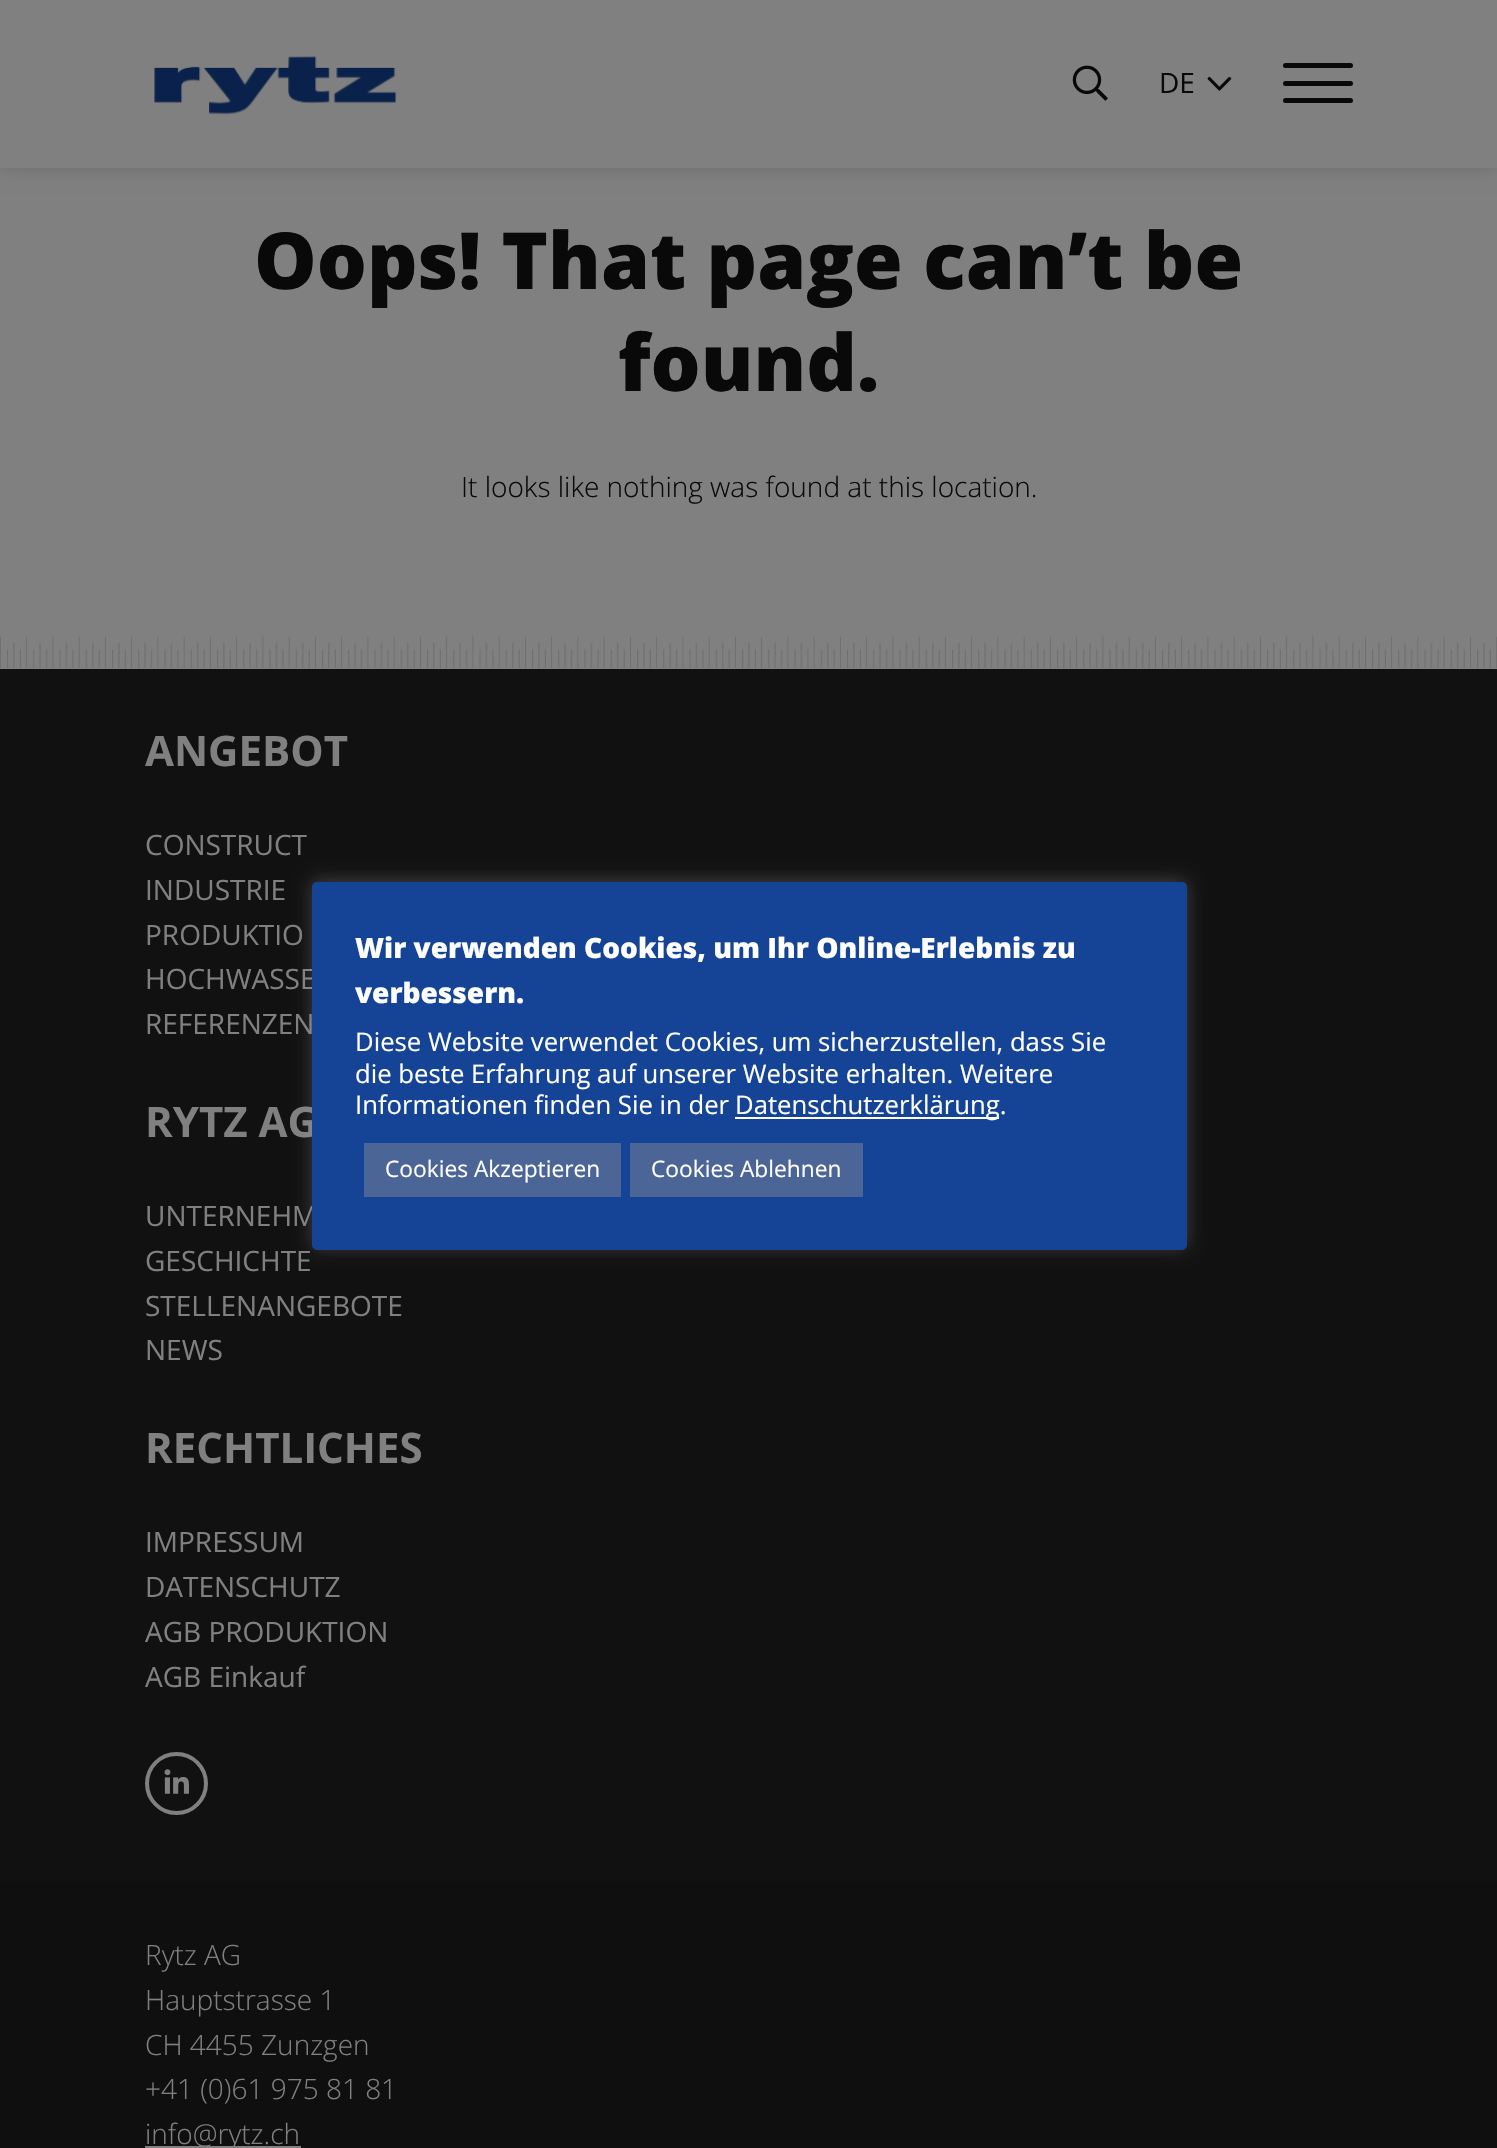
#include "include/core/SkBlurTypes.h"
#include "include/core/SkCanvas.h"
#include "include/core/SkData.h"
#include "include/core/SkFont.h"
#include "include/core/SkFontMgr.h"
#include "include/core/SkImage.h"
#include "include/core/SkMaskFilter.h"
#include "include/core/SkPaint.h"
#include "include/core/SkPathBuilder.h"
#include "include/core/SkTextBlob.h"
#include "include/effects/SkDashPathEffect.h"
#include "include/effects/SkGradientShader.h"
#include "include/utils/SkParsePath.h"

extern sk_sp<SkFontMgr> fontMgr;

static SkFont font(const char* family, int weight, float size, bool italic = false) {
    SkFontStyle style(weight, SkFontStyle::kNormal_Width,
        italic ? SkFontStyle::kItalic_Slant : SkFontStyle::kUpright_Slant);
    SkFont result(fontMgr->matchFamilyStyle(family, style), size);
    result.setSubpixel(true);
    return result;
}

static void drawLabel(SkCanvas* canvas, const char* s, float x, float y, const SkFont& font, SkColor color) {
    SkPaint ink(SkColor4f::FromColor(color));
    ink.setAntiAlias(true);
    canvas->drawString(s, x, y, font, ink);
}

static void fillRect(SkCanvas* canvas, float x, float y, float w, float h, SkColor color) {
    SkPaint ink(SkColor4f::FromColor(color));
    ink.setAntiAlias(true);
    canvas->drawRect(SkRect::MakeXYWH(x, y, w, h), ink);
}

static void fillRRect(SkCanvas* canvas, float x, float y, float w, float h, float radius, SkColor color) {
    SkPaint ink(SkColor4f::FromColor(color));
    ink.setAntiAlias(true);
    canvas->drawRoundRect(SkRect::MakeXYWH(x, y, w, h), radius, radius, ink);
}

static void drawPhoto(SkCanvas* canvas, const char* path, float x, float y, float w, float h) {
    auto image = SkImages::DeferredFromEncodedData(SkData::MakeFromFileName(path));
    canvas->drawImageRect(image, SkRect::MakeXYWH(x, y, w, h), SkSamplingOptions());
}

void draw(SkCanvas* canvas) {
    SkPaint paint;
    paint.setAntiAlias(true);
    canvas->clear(0xFF808080);
    paint.setColor(0x29000000);
    paint.setMaskFilter(SkMaskFilter::MakeBlur(kNormal_SkBlurStyle, 9));
    canvas->drawRect(SkRect::MakeXYWH(0, 0, 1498, 168), paint);
    paint.setMaskFilter(nullptr);
    fillRect(canvas, 0, 0, 1497, 168, 0xFF808080);
    drawPhoto(canvas, "assets/img1.png", 154, 56, 243, 59);
    drawPhoto(canvas, "assets/img2.png", 1072, 65, 36, 36);
    SkFont font1 = font("Open Sans", 400, 28);
    drawLabel(canvas, "DE", 1159, 93, font1, 0xFF090909);
    drawPhoto(canvas, "assets/img3.png", 1207, 76, 25, 15);
    fillRRect(canvas, 1283, 81, 70, 5, 2.5f, 0xFF090909);
    fillRRect(canvas, 1283, 63, 70, 5, 2.5f, 0xFF090909);
    fillRRect(canvas, 1283, 98, 70, 5, 2.5f, 0xFF090909);
    SkFont font2 = font("Open Sans", 800, 78.75f);
    drawLabel(canvas, "Oops! That page can’t be", 254, 289, font2, 0xFF090909);
    drawLabel(canvas, "found.", 618, 391, font2, 0xFF090909);
    SkFont font3 = font("Open Sans", 300, 28);
    drawLabel(canvas, "It looks like nothing was found at this location.", 461, 497, font3, 0xFF090909);
    drawPhoto(canvas, "assets/img4.png", 0, 636, 1497, 32);
    fillRect(canvas, 0, 669, 1497, 1212, 0xFF111112);
    SkFont font4 = font("Open Sans", 700, 42);
    drawLabel(canvas, "ANGEBOT", 145, 766, font4, 0xFF808080);
    drawLabel(canvas, "CONSTRUCT", 145, 855, font1, 0xFF808080);
    drawLabel(canvas, "INDUSTRIE", 145, 900, font1, 0xFF808080);
    drawLabel(canvas, "PRODUKTIO", 145, 945, font1, 0xFF808080);
    drawLabel(canvas, "HOCHWASSE", 145, 989, font1, 0xFF808080);
    drawLabel(canvas, "REFERENZEN", 145, 1034, font1, 0xFF808080);
    drawLabel(canvas, "RYTZ AG", 145, 1137, font4, 0xFF808080);
    drawLabel(canvas, "UNTERNEHM", 145, 1226, font1, 0xFF808080);
    drawLabel(canvas, "GESCHICHTE", 145, 1271, font1, 0xFF808080);
    drawLabel(canvas, "STELLENANGEBOTE", 145, 1316, font1, 0xFF808080);
    drawLabel(canvas, "NEWS", 145, 1360, font1, 0xFF808080);
    drawLabel(canvas, "RECHTLICHES", 145, 1463, font4, 0xFF808080);
    drawLabel(canvas, "IMPRESSUM", 145, 1552, font1, 0xFF808080);
    drawLabel(canvas, "DATENSCHUTZ", 145, 1597, font1, 0xFF808080);
    drawLabel(canvas, "AGB PRODUKTION", 145, 1642, font1, 0xFF808080);
    drawLabel(canvas, "AGB Einkauf", 145, 1687, font1, 0xFF808080);
    paint.setStroke(true);
    paint.setStrokeWidth(4);
    paint.setColor(0xFF808080);
    canvas->drawCircle(176.5f, 1783.5f, 29.5f, paint);
    drawPhoto(canvas, "assets/img5.png", 164, 1769, 25, 25);
    fillRect(canvas, 0, 1881, 1497, 267, 0xFF0F0F0F);
    drawLabel(canvas, "Rytz AG", 145, 1965, font3, 0xFF808080);
    drawLabel(canvas, "Hauptstrasse 1", 145, 2010, font3, 0xFF808080);
    drawLabel(canvas, "CH 4455 Zunzgen", 145, 2055, font3, 0xFF808080);
    drawLabel(canvas, "+41 (0)61 975 81 81", 145, 2099, font3, 0xFF808080);
    fillRect(canvas, 145, 2146, 156, 2, 0xFF808080);
    drawLabel(canvas, "info@rytz.ch", 145, 2144, font3, 0xFF808080);
    paint.setStroke(false);
    paint.setColor(0x4DACABAB);
    paint.setMaskFilter(SkMaskFilter::MakeBlur(kNormal_SkBlurStyle, 9));
    canvas->drawRoundRect(SkRect::MakeXYWH(312, 880, 875, 368), 5, 5, paint);
    paint.setMaskFilter(nullptr);
    fillRRect(canvas, 312, 882, 875, 368, 5, 0xFF154496);
    SkFont font5 = font("Open Sans", 800, 28);
    drawLabel(canvas, "Wir verwenden Cookies, um Ihr Online-Erlebnis zu", 355, 958, font5, 0xFFFFFFFF);
    drawLabel(canvas, "verbessern.", 355, 1003, font5, 0xFFFFFFFF);
    SkFont font6 = font("Open Sans", 400, 25.7f);
    drawLabel(canvas, "Diese Website verwendet Cookies, um sicherzustellen, dass Sie", 355, 1051, font6, 0xFFFFFFFF);
    drawLabel(canvas, "die beste Erfahrung auf unserer Website erhalten. Weitere", 355, 1083, font6, 0xFFFFFFFF);
    drawLabel(canvas, "Informationen finden Sie in der", 355, 1114, font6, 0xFFFFFFFF);
    fillRect(canvas, 735, 1117, 264, 2, 0xFFFFFFFF);
    drawLabel(canvas, "Datenschutzerklärung.", 735, 1114, font6, 0xFFFFFFFF);
    fillRect(canvas, 364, 1143, 257, 54, 0xFF4B6596);
    SkFont font7 = font("Open Sans", 400, 22.75f);
    drawLabel(canvas, "Cookies Akzeptieren", 385, 1177, font7, 0xFFFFFFFF);
    fillRect(canvas, 630, 1143, 233, 54, 0xFF4B6596);
    drawLabel(canvas, "Cookies Ablehnen", 651, 1177, font7, 0xFFFFFFFF);
}
